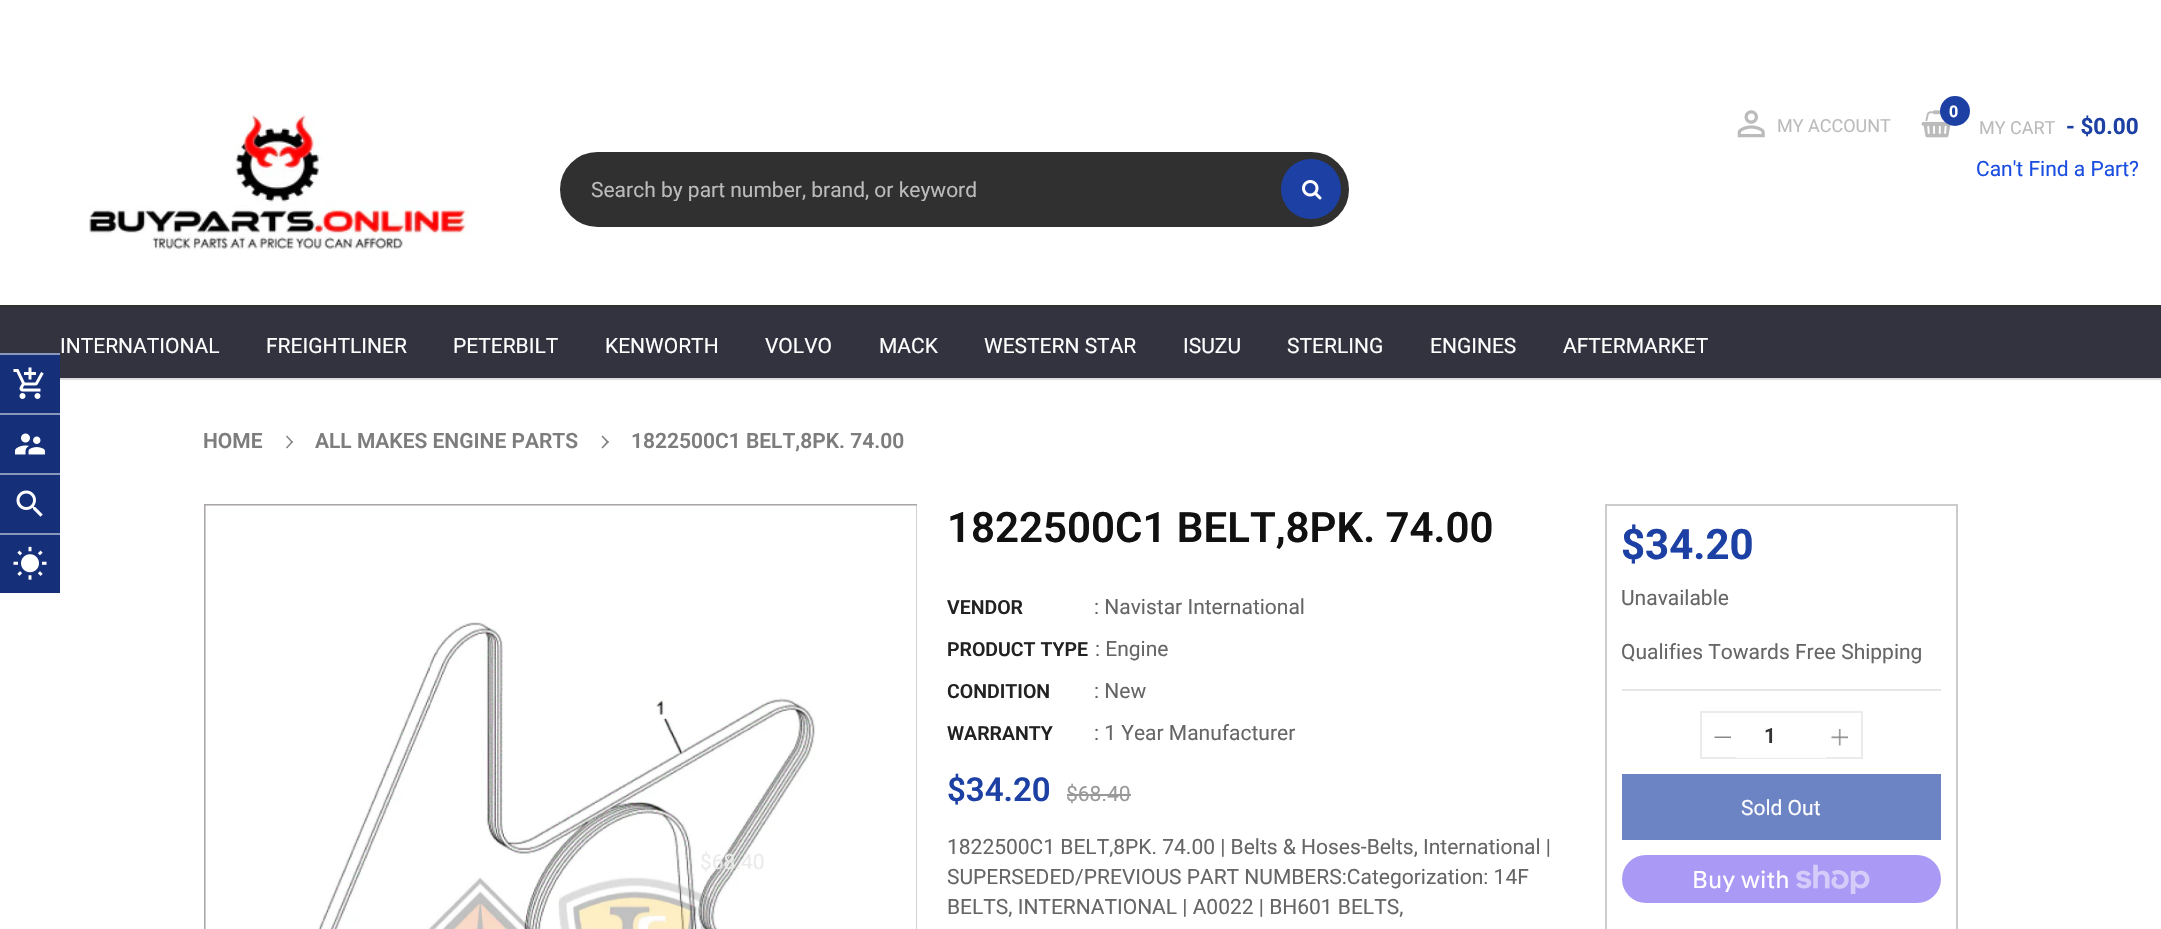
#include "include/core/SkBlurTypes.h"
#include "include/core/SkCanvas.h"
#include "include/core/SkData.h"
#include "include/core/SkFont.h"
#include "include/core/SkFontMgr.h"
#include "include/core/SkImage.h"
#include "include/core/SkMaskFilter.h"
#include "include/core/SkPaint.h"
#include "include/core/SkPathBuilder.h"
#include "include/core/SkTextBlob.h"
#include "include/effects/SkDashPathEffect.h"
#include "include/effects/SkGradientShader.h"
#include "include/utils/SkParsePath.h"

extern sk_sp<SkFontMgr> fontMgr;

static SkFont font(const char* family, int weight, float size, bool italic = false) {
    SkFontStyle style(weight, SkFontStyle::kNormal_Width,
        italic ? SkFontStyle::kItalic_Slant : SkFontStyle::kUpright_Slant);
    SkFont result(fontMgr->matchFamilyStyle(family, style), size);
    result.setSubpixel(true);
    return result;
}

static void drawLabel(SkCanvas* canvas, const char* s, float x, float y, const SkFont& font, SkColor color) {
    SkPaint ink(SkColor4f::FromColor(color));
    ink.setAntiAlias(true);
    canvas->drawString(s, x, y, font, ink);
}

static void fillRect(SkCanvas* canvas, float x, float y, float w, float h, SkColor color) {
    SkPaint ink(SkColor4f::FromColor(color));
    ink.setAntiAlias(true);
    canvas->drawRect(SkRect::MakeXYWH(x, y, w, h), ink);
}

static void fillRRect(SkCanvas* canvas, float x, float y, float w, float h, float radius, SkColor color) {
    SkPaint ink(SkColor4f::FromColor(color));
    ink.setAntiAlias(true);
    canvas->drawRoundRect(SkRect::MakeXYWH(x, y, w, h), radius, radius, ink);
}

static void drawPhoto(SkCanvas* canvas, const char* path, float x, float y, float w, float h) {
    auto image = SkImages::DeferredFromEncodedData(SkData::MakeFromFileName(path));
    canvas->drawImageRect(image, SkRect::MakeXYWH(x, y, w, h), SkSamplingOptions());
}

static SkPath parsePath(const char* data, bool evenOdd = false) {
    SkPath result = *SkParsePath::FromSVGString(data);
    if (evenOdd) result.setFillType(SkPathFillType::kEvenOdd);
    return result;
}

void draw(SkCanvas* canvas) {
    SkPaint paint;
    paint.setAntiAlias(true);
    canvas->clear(0xFFFFFFFF);
    fillRect(canvas, 60, 378, 2101, 2, 0xFFDDDDDD);
    drawPhoto(canvas, "assets/img1.png", 89, 114, 381, 136);
    drawPhoto(canvas, "assets/img2.png", 1737, 110, 28, 28);
    SkFont font1 = font("Roboto", 400, 18);
    drawLabel(canvas, "MY ACCOUNT", 1777, 132, font1, 0xFFBBBBBB);
    drawPhoto(canvas, "assets/img3.png", 1921, 110, 31, 28);
    paint.setColor(0xFF1D40A4);
    canvas->drawCircle(1955, 111, 15, paint);
    SkFont font2 = font("Roboto", 700, 16);
    drawLabel(canvas, "0", 1949, 117, font2, 0xFFFFFFFF);
    drawLabel(canvas, "MY CART", 1979, 134, font1, 0xFFBBBBBB);
    SkFont font3 = font("Roboto", 700, 22.5f);
    drawLabel(canvas, "- $0.00", 2066, 134, font3, 0xFF1D40A4);
    SkFont font4 = font("Roboto", 400, 21);
    drawLabel(canvas, "Can't Find a Part?", 1976, 176, font4, 0xFF1A4EE1);
    paint.setColor(0xFF303030);
    canvas->drawRoundRect(SkRect::MakeXYWH(561, 153, 787, 73), 36.5f, 36.5f, paint);
    paint.setStroke(true);
    paint.setStrokeWidth(2);
    canvas->drawRoundRect(SkRect::MakeXYWH(561, 153, 787, 73), 36.5f, 36.5f, paint);
    canvas->save();
    canvas->clipRect(SkRect::MakeXYWH(591, 177, 675, 24));
    drawLabel(canvas, "Search by part number, brand, or keyword", 591, 197, font4, 0xFFBBBBBB);
    canvas->restore();
    paint.setStroke(false);
    paint.setColor(0xFF1D40A4);
    canvas->drawCircle(1311, 189, 30, paint);
    drawPhoto(canvas, "assets/img4.png", 1302, 180, 20, 20);
    fillRect(canvas, 0, 307, 2161, 71, 0xFF32333F);
    fillRect(canvas, 0, 305, 2161, 2, 0xFF303030);
    drawLabel(canvas, "INTERNATIONAL", 60, 353, font4, 0xFFFFFFFF);
    drawLabel(canvas, "FREIGHTLINER", 266, 353, font4, 0xFFFFFFFF);
    drawLabel(canvas, "PETERBILT", 453, 353, font4, 0xFFFFFFFF);
    drawLabel(canvas, "KENWORTH", 605, 353, font4, 0xFFFFFFFF);
    drawLabel(canvas, "VOLVO", 765, 353, font4, 0xFFFFFFFF);
    drawLabel(canvas, "MACK", 879, 353, font4, 0xFFFFFFFF);
    drawLabel(canvas, "WESTERN STAR", 984, 353, font4, 0xFFFFFFFF);
    drawLabel(canvas, "ISUZU", 1183, 353, font4, 0xFFFFFFFF);
    drawLabel(canvas, "STERLING", 1287, 353, font4, 0xFFFFFFFF);
    drawLabel(canvas, "ENGINES", 1430, 353, font4, 0xFFFFFFFF);
    drawLabel(canvas, "AFTERMARKET", 1563, 353, font4, 0xFFFFFFFF);
    fillRect(canvas, 0, 355, 60, 58, 0xFF152F79);
    fillRect(canvas, 0, 353, 60, 2, 0xFF8A97BC);
    drawPhoto(canvas, "assets/img5.png", 13, 367, 31, 32);
    fillRect(canvas, 0, 415, 60, 58, 0xFF152F79);
    fillRect(canvas, 0, 413, 60, 2, 0xFF8A97BC);
    drawPhoto(canvas, "assets/img6.png", 15, 433, 30, 22);
    fillRect(canvas, 0, 475, 60, 58, 0xFF152F79);
    fillRect(canvas, 0, 473, 60, 2, 0xFF8A97BC);
    drawPhoto(canvas, "assets/img7.png", 16, 490, 27, 27);
    fillRect(canvas, 0, 535, 60, 58, 0xFF152F79);
    fillRect(canvas, 0, 533, 60, 2, 0xFF8A97BC);
    drawPhoto(canvas, "assets/img8.png", 13, 546, 34, 34);
    SkFont font5 = font("Roboto", 600, 21);
    drawLabel(canvas, "HOME", 203, 448, font5, 0xFF7D7D7D);
    paint.setColor(0xFF7D7D7D);
    canvas->drawPath(parsePath("M287 435.5L293 442L292 443L286 436.5Z"), paint);
    canvas->drawPath(parsePath("M292 441L293 442L287 448.5L286 447.5Z"), paint);
    drawLabel(canvas, "ALL MAKES ENGINE PARTS", 315, 448, font5, 0xFF7D7D7D);
    canvas->drawPath(parsePath("M602.5 435.5L609 442L607.5 443L601.5 436.5Z"), paint);
    canvas->drawPath(parsePath("M607.5 441L609 442L602.5 448.5L601.5 447.5Z"), paint);
    drawLabel(canvas, "1822500C1 BELT,8PK. 74.00", 631, 448, font5, 0xFF7D7D7D);
    canvas->save();
    canvas->clipRect(SkRect::MakeXYWH(204, 504, 713, 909));
    paint.setStroke(true);
    paint.setColor(0xFFABA6A6);
    canvas->drawRect(SkRect::MakeXYWH(205, 505, 712, 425), paint);
    canvas->restore();
    drawPhoto(canvas, "assets/img9.png", 205, 505, 712, 424);
    drawLabel(canvas, "$68.40", 700, 869, font4, 0xFFEBEBEB);
    SkFont font6 = font("Roboto", 600, 42);
    drawLabel(canvas, "1822500C1 BELT,8PK. 74.00", 947, 542, font6, 0xFF111111);
    SkFont font7 = font("Roboto", 600, 19.5f);
    drawLabel(canvas, "VENDOR", 947, 614, font7, 0xFF222222);
    drawLabel(canvas, ": Navistar International", 1094, 614, font4, 0xFF666666);
    drawLabel(canvas, "PRODUCT TYPE", 947, 656, font7, 0xFF222222);
    drawLabel(canvas, ": Engine", 1095, 656, font4, 0xFF666666);
    drawLabel(canvas, "CONDITION", 947, 698, font7, 0xFF222222);
    drawLabel(canvas, ": New", 1094, 698, font4, 0xFF666666);
    drawLabel(canvas, "WARRANTY", 947, 740, font7, 0xFF222222);
    drawLabel(canvas, ": 1 Year Manufacturer", 1094, 740, font4, 0xFF666666);
    SkFont font8 = font("Roboto", 600, 33);
    drawLabel(canvas, "$34.20", 947, 801, font8, 0xFF1D40A4);
    drawLabel(canvas, "$68.40", 1066, 801, font4, 0xFF999999);
    fillRect(canvas, 1067, 794, 64, 2, 0xFF999999);
    drawLabel(canvas, "1822500C1 BELT,8PK. 74.00 | Belts & Hoses-Belts, International |", 947, 854, font4, 0xFF666666);
    drawLabel(canvas, "SUPERSEDED/PREVIOUS PART NUMBERS:Categorization: 14F", 947, 884, font4, 0xFF666666);
    drawLabel(canvas, "BELTS, INTERNATIONAL | A0022 | BH601 BELTS,", 947, 914, font4, 0xFF666666);
    paint.setColor(0xFFCCCCCC);
    canvas->drawRect(SkRect::MakeXYWH(1606, 505, 351, 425), paint);
    SkFont font9 = font("Roboto", 700, 42);
    drawLabel(canvas, "$34.20", 1621, 559, font9, 0xFF1D40A4);
    drawLabel(canvas, "Unavailable", 1621, 605, font4, 0xFF666666);
    drawLabel(canvas, "Qualifies Towards Free Shipping", 1621, 659, font4, 0xFF666666);
    fillRect(canvas, 1622, 689, 319, 2, 0xFFE6E6E6);
    paint.setColor(0xFFEBEBEB);
    canvas->drawRect(SkRect::MakeXYWH(1701, 712, 161, 46), paint);
    drawPhoto(canvas, "assets/img10.png", 1714, 736, 17, 2);
    fillRect(canvas, 1736, 757, 90, 1, 0xFFFFFFFF);
    drawLabel(canvas, "1", 1764, 743, font5, 0xFF333333);
    drawPhoto(canvas, "assets/img11.png", 1831, 729, 17, 17);
    fillRect(canvas, 1622, 774, 319, 66, 0xFF6C83C4);
    drawLabel(canvas, "Sold Out", 1741, 815, font4, 0xFFFFFFFF);
    fillRRect(canvas, 1622, 855, 319, 48, 24, 0xFFAA99F5);
    SkFont font10 = font("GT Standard", 400, 24);
    drawLabel(canvas, "Buy with", 1692, 888, font10, 0xFFFFFFFF);
    drawPhoto(canvas, "assets/img12.png", 1796, 864, 74, 30);
}
